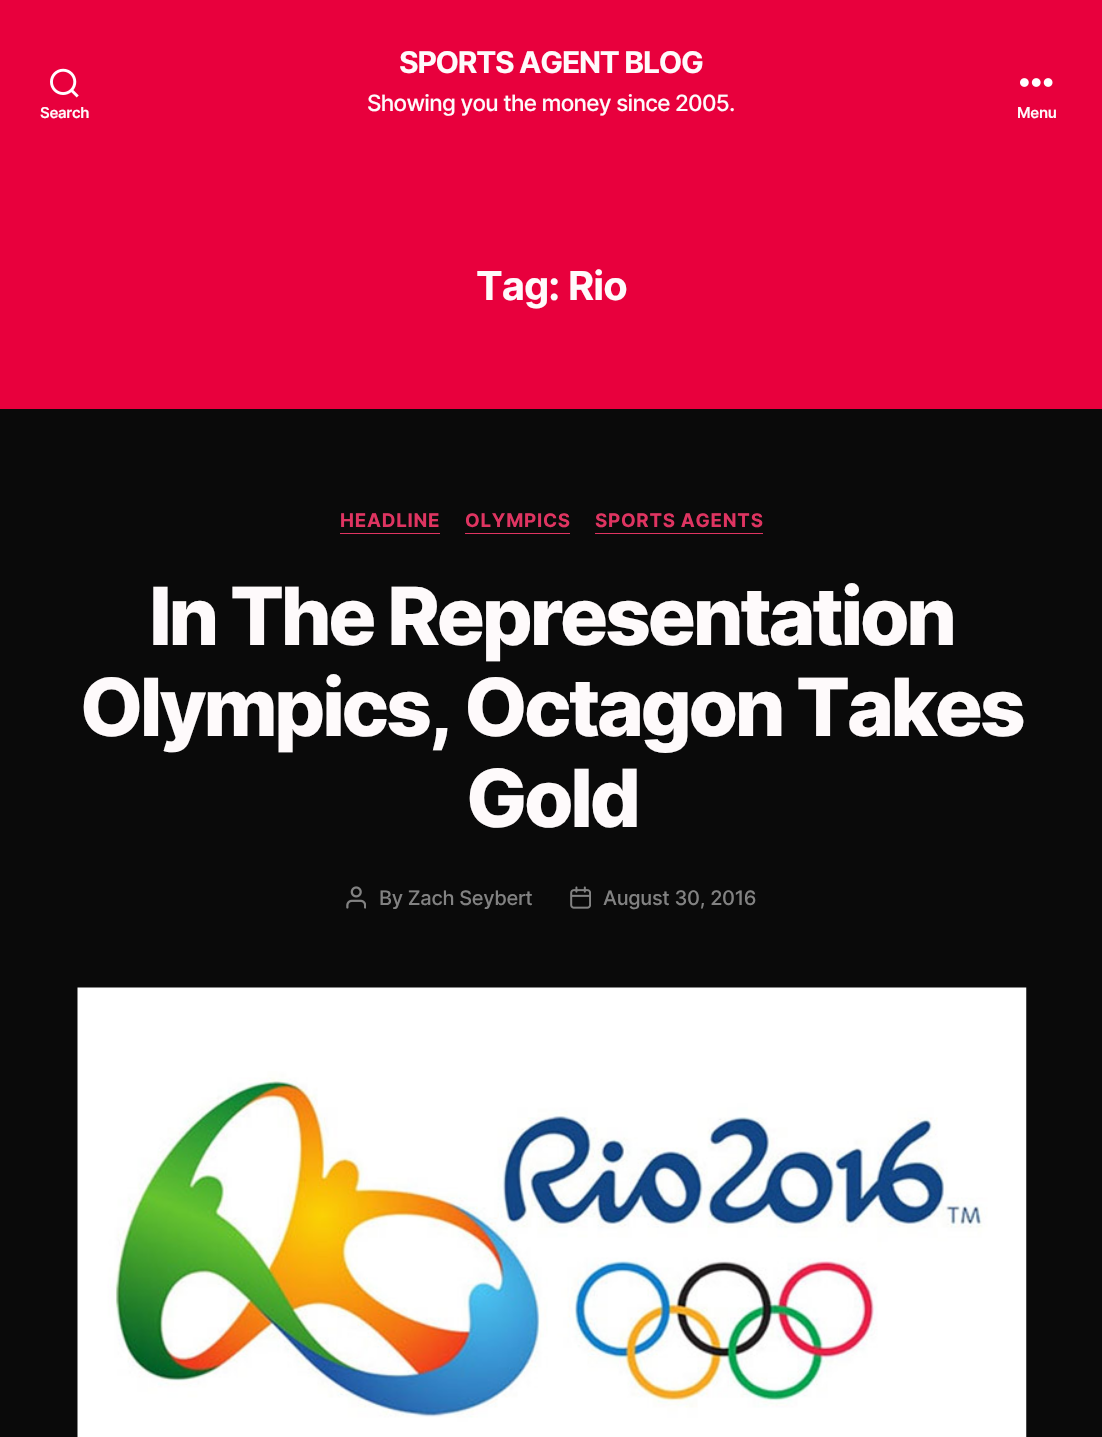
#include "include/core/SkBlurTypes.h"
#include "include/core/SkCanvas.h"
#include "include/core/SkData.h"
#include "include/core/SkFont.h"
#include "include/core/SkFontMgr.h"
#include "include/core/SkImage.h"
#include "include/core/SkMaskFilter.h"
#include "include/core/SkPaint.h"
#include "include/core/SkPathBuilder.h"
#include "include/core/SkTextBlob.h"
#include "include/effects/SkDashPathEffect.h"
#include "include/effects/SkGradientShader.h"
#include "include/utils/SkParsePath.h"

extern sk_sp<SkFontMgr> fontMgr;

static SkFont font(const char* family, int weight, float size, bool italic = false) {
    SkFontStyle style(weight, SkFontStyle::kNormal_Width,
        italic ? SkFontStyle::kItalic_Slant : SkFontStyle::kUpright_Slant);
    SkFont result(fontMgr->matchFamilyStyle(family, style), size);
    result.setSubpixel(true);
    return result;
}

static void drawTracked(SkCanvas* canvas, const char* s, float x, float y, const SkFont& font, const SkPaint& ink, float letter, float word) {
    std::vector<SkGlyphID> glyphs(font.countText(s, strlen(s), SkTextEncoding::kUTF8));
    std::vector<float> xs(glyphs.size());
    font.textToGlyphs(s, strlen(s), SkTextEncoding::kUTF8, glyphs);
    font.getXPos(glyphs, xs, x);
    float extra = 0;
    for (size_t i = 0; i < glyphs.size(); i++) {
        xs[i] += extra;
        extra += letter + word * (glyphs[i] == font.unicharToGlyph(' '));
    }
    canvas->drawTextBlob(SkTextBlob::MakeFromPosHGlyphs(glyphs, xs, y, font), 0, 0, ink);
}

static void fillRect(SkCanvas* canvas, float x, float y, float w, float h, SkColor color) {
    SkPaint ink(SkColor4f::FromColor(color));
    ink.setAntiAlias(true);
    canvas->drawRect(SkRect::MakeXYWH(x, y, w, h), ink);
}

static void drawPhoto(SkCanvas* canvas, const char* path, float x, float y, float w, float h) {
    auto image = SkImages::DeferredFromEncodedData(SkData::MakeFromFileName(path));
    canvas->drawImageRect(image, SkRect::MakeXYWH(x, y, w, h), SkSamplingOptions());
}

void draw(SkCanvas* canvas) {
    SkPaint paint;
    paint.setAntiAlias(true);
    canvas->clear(0xFF0A0A0A);
    fillRect(canvas, 0, 0, 1102, 409, 0xFFE8003D);
    drawPhoto(canvas, "assets/img1.png", 50, 68, 29, 30);
    SkFont font1 = font("Inter", 600, 15);
    paint.setColor(0xFFFEFAFB);
    drawTracked(canvas, "Search", 40, 118, font1, paint, -0.3f, 0);
    SkFont font2 = font("Inter", 700, 30);
    drawTracked(canvas, "SPORTS AGENT BLOG", 399, 73, font2, paint, -1.25f, 0);
    SkFont font3 = font("Inter", 500, 22.5f);
    drawTracked(canvas, "Showing you the money since 2005.", 367, 111, font3, paint, -0.7f, 0);
    drawPhoto(canvas, "assets/img2.png", 1020, 78, 33, 9);
    drawTracked(canvas, "Menu", 1017, 118, font1, paint, -0.3f, 0);
    SkFont font4 = font("Inter", 700, 40);
    drawTracked(canvas, "Tag:", 476, 300, font4, paint, -1, 0);
    drawTracked(canvas, "Rio", 568, 300, font4, paint, -1, 0);
    fillRect(canvas, 340, 533, 100, 1, 0xFFDF3461);
    SkFont font5 = font("Inter", 700, 18.75f);
    paint.setColor(0xFFDF3461);
    drawTracked(canvas, "HEADLINE", 340, 527, font5, paint, 0.75f, 0);
    fillRect(canvas, 465, 533, 105, 1, 0xFFDF3461);
    drawTracked(canvas, "OLYMPICS", 465, 527, font5, paint, 0.75f, 0);
    fillRect(canvas, 595, 533, 168, 1, 0xFFDF3461);
    drawTracked(canvas, "SPORTS AGENTS", 595, 527, font5, paint, 0.75f, 0);
    SkFont font6 = font("Inter", 800, 80);
    paint.setColor(0xFFFEFAFB);
    drawTracked(canvas, "In The Representation", 149, 645, font6, paint, -3.3f, 0);
    drawTracked(canvas, "Olympics, Octagon Takes", 80, 736, font6, paint, -3.3f, 0);
    drawTracked(canvas, "Gold", 466, 827, font6, paint, -3.3f, 0);
    drawPhoto(canvas, "assets/img3.png", 346, 886, 20, 23);
    SkFont font7 = font("Inter", 500, 20);
    paint.setColor(0xFF828282);
    drawTracked(canvas, "By Zach Seybert", 379, 905, font7, paint, -0.3f, 0);
    drawPhoto(canvas, "assets/img4.png", 570, 886, 21, 23);
    drawTracked(canvas, "August 30, 2016", 603, 905, font7, paint, -0.3f, 0);
    drawPhoto(canvas, "assets/img5.png", 77, 987, 950, 450);
}
